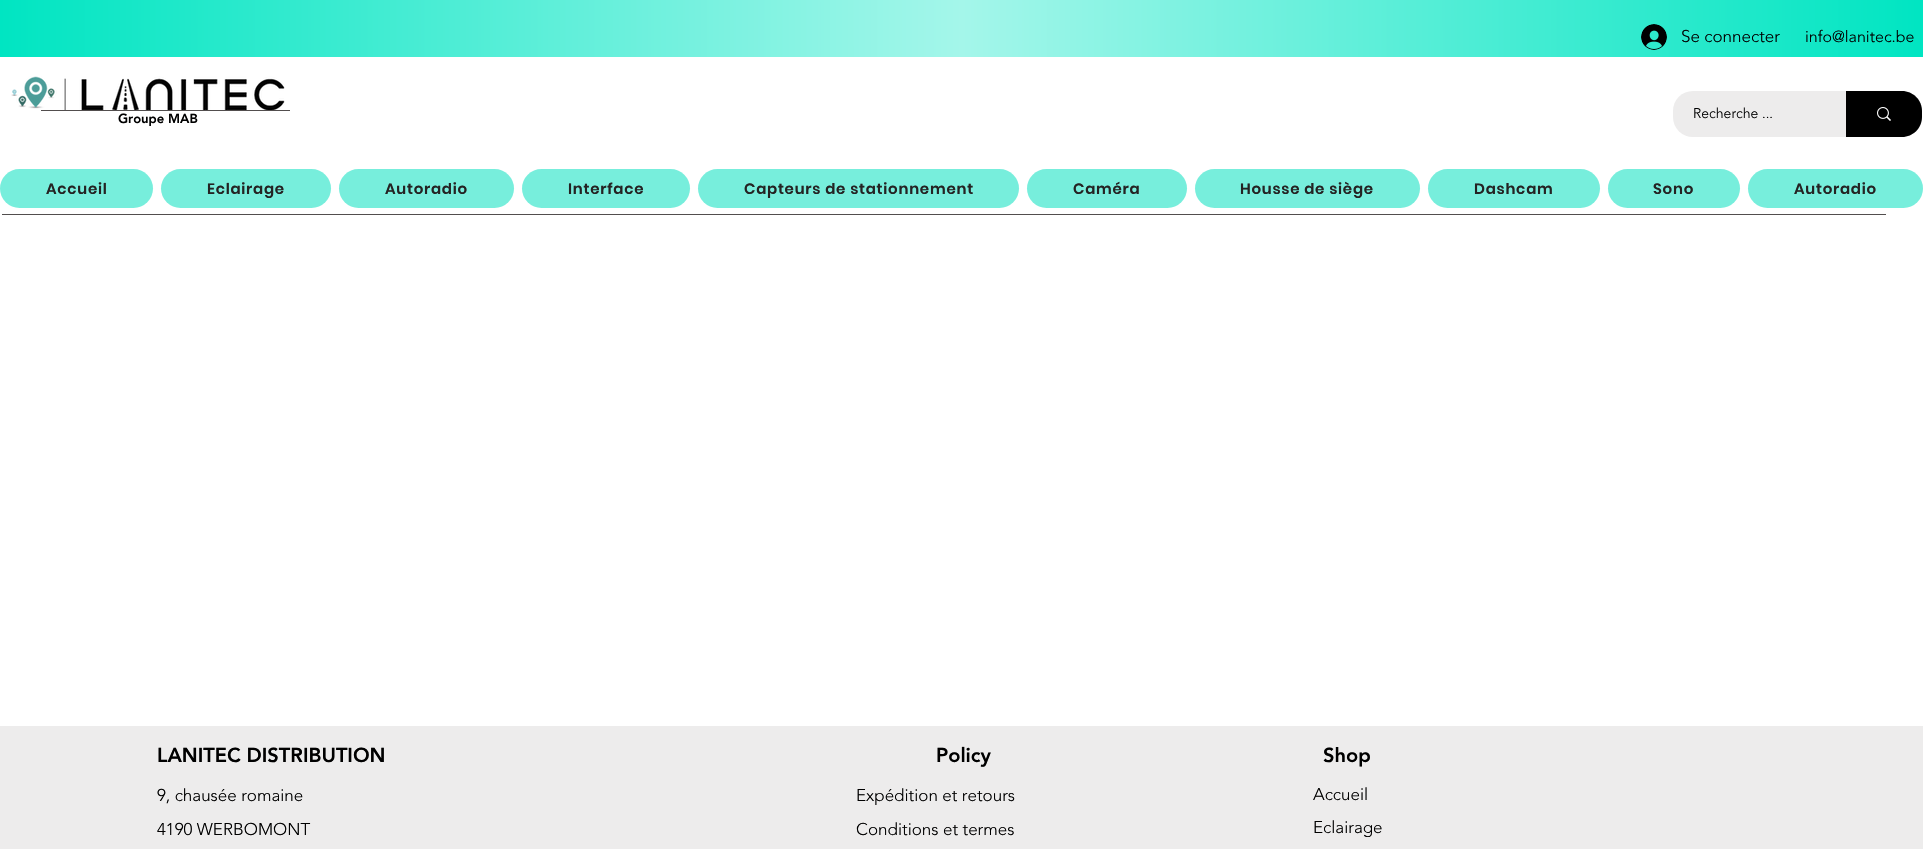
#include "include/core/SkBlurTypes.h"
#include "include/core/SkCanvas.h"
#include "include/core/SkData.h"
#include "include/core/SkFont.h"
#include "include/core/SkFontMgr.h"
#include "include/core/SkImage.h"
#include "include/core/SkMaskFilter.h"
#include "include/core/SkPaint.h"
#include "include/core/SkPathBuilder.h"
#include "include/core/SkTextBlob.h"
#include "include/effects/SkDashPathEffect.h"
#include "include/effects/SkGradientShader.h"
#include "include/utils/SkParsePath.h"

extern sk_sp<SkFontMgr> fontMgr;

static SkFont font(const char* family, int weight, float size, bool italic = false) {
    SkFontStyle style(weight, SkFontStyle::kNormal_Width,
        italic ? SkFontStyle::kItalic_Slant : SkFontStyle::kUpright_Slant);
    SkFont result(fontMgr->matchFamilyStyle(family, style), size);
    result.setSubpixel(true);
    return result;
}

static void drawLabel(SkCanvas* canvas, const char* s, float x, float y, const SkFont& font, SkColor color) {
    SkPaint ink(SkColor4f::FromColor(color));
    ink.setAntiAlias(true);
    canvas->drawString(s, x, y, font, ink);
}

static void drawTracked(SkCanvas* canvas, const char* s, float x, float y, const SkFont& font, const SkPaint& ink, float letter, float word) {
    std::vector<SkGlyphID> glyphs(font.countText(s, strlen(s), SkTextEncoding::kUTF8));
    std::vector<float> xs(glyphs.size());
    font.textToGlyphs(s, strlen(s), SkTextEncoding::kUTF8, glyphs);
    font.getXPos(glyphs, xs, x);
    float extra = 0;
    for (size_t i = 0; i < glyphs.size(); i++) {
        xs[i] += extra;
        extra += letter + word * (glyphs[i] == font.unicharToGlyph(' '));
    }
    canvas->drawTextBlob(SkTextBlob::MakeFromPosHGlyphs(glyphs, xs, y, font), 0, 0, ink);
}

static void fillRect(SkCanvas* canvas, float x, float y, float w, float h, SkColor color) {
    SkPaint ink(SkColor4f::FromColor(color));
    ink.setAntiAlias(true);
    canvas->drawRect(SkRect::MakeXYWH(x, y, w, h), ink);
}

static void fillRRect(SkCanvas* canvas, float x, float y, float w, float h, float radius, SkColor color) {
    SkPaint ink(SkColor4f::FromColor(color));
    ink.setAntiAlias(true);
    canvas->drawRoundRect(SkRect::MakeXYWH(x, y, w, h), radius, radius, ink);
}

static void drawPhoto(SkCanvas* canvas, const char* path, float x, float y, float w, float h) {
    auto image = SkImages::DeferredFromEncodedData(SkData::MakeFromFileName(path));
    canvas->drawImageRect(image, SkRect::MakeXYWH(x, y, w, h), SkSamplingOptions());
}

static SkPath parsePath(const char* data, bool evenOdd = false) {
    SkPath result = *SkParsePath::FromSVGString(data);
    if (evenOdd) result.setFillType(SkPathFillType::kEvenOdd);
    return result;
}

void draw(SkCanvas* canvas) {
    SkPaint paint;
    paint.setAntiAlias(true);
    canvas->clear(0xFFFFFFFF);
    {
        const SkColor colors[] = {0xFF00E5C2, 0xFFA4F6EA};
        const float stops[] = {0, 1};
        const SkPoint ends[] = {{0, 29}, {962, 28}};
        paint.setShader(SkGradientShader::MakeLinear(ends, colors, stops, 2, SkTileMode::kClamp));
        paint.setAlpha(255);
    }
    canvas->drawRect(SkRect::MakeXYWH(0, 0, 962, 57), paint);
    {
        const SkColor colors[] = {0xFFA4F6EA, 0xFF00E5C2};
        const float stops[] = {0, 1};
        const SkPoint ends[] = {{962, 29}, {1923, 28}};
        paint.setShader(SkGradientShader::MakeLinear(ends, colors, stops, 2, SkTileMode::kClamp));
        paint.setAlpha(255);
    }
    canvas->drawRect(SkRect::MakeXYWH(962, 0, 961, 57), paint);
    drawPhoto(canvas, "assets/img1.png", 1641, 24, 26, 26);
    SkFont font1 = font("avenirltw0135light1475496", 300, 17);
    drawLabel(canvas, "Se connecter", 1681, 42, font1, 0xFF000000);
    SkFont font2 = font("avenirltw0135light1475496", 300, 16);
    drawLabel(canvas, "info@lanitec.be", 1805, 42, font2, 0xFF000000);
    drawPhoto(canvas, "assets/img2.png", 11, 76, 274, 34);
    fillRect(canvas, 41, 110, 249, 1, 0xFF524E4E);
    SkFont font3 = font("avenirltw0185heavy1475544", 900, 13);
    drawLabel(canvas, "Groupe MAB", 118, 123, font3, 0xFF000000);
    fillRRect(canvas, 1673, 91, 249, 46, 20, 0xFFEDECEC);
    SkFont font4 = font("avenirltw0135light1475496", 300, 14);
    drawLabel(canvas, "Recherche ...", 1693, 118, font4, 0xFF000000);
    paint.setShader(nullptr);
    paint.setColor(0xFF000000);
    canvas->drawPath(parsePath("M1846 91H1902C1913 91 1922 100 1922 111V117C1922 128 1913 137 1902 137H1846Z"), paint);
    drawPhoto(canvas, "assets/img3.png", 1877, 107, 14, 14);
    fillRRect(canvas, 0, 169, 153, 39, 19.5f, 0xFF77EEDC);
    SkFont font5 = font("Poppins", 600, 15);
    paint.setColor(0xFF242323);
    drawTracked(canvas, "Accueil", 46, 194, font5, paint, 0.75f, 0);
    fillRRect(canvas, 161, 169, 170, 39, 19.5f, 0xFF77EEDC);
    drawTracked(canvas, "Eclairage", 207, 194, font5, paint, 0.75f, 0);
    fillRRect(canvas, 339, 169, 175, 39, 19.5f, 0xFF77EEDC);
    drawTracked(canvas, "Autoradio", 385, 194, font5, paint, 0.75f, 0);
    fillRRect(canvas, 522, 169, 168, 39, 19.5f, 0xFF77EEDC);
    drawTracked(canvas, "Interface", 568, 194, font5, paint, 0.75f, 0);
    fillRRect(canvas, 698, 169, 321, 39, 19.5f, 0xFF77EEDC);
    drawTracked(canvas, "Capteurs de stationnement", 744, 194, font5, paint, 0.75f, 0);
    fillRRect(canvas, 1027, 169, 160, 39, 19.5f, 0xFF77EEDC);
    drawTracked(canvas, "Caméra", 1073, 194, font5, paint, 0.75f, 0);
    fillRRect(canvas, 1195, 169, 225, 39, 19.5f, 0xFF77EEDC);
    drawTracked(canvas, "Housse de siège", 1240, 194, font5, paint, 0.75f, 0);
    fillRRect(canvas, 1428, 169, 172, 39, 19.5f, 0xFF77EEDC);
    drawTracked(canvas, "Dashcam", 1474, 194, font5, paint, 0.75f, 0);
    fillRRect(canvas, 1608, 169, 132, 39, 19.5f, 0xFF77EEDC);
    drawTracked(canvas, "Sono", 1653, 194, font5, paint, 0.75f, 0);
    fillRRect(canvas, 1748, 169, 175, 39, 19.5f, 0xFF77EEDC);
    drawTracked(canvas, "Autoradio", 1794, 194, font5, paint, 0.75f, 0);
    fillRect(canvas, 2, 214, 1884, 1, 0xFF524E4E);
    fillRect(canvas, 0, 726, 1923, 123, 0xFFEDECEC);
    SkFont font6 = font("avenirltw0185heavy1475544", 900, 20);
    drawLabel(canvas, "LANITEC DISTRIBUTION", 157, 762, font6, 0xFF000000);
    drawLabel(canvas, "9, chausée romaine", 157, 801, font1, 0xFF000000);
    drawLabel(canvas, "4190 WERBOMONT", 157, 835, font1, 0xFF000000);
    drawLabel(canvas, "Policy", 936, 762, font6, 0xFF000000);
    drawLabel(canvas, "Expédition et retours", 856, 801, font1, 0xFF000000);
    drawLabel(canvas, "Conditions et termes", 856, 835, font1, 0xFF000000);
    drawLabel(canvas, "Shop", 1323, 762, font6, 0xFF000000);
    drawLabel(canvas, "Accueil", 1313, 800, font1, 0xFF000000);
    drawLabel(canvas, "Eclairage", 1313, 833, font1, 0xFF000000);
}
